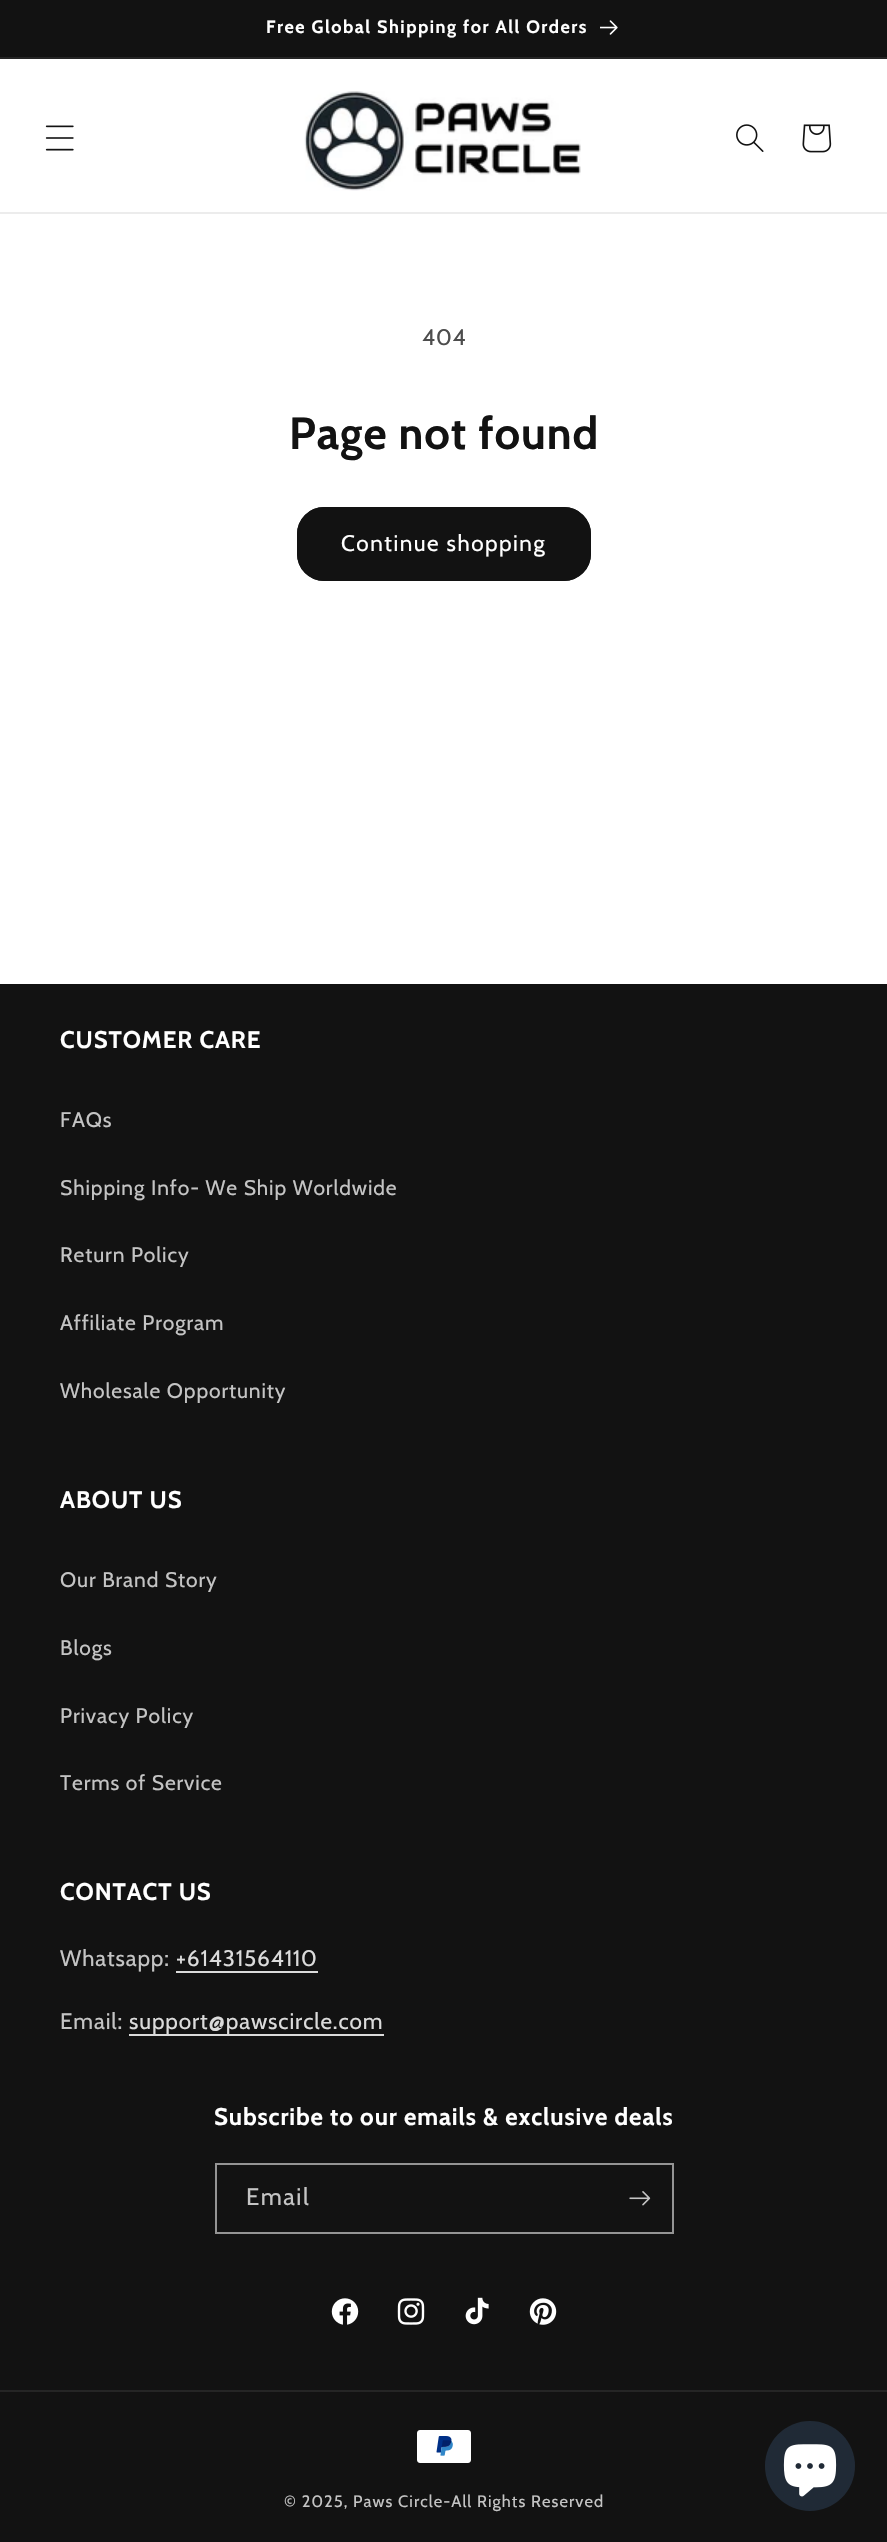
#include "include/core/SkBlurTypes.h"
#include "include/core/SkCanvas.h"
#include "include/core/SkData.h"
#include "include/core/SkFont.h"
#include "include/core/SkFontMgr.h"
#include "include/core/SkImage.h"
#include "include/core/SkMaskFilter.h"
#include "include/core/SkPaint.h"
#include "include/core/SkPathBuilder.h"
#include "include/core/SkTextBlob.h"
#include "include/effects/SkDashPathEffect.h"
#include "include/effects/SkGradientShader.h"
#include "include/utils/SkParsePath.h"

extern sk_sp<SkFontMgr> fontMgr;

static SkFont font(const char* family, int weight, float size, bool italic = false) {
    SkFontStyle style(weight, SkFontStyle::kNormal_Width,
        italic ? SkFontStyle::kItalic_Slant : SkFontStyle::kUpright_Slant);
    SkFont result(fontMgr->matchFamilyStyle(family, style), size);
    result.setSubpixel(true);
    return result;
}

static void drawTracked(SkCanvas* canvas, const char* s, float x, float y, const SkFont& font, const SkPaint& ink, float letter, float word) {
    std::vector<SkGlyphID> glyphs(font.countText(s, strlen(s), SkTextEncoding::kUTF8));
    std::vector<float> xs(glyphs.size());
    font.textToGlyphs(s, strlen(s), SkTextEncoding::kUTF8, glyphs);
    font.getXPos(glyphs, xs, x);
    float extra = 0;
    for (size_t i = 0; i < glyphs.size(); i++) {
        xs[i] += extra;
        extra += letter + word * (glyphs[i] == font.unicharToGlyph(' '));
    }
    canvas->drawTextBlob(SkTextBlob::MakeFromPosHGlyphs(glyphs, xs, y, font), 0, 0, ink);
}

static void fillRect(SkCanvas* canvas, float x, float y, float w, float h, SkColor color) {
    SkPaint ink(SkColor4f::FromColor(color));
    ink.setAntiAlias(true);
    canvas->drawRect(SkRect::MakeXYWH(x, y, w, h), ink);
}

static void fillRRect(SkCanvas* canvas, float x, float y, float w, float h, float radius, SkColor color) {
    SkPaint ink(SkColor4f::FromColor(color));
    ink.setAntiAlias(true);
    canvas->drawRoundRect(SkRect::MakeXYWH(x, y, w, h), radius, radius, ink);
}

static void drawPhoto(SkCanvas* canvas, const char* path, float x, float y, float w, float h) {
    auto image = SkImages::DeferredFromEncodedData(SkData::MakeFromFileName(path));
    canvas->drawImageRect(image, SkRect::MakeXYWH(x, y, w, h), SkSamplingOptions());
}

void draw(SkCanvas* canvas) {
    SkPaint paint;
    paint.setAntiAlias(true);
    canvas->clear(0xFFFFFFFF);
    fillRect(canvas, 0, 0, 887, 57, 0xFF121212);
    fillRect(canvas, 0, 57, 887, 2, 0xFF252525);
    SkFont font1 = font("Cabin", 700, 18);
    paint.setColor(0xFFFFFFFF);
    drawTracked(canvas, "Free Global Shipping for All Orders", 266, 33, font1, paint, 1.5f, 0);
    drawPhoto(canvas, "assets/img1.png", 600, 20, 18, 15);
    fillRect(canvas, 0, 212, 887, 2, 0xFFECECEC);
    drawPhoto(canvas, "assets/img2.png", 45, 125, 29, 26);
    drawPhoto(canvas, "assets/img3.png", 304, 91, 277, 100);
    drawPhoto(canvas, "assets/img4.png", 736, 124, 28, 28);
    drawPhoto(canvas, "assets/img5.png", 802, 124, 30, 29);
    SkFont font2 = font("Cabin", 400, 22.5f);
    paint.setColor(0xFF4D4D4D);
    drawTracked(canvas, "404", 422, 345, font2, paint, 0.9f, 0);
    SkFont font3 = font("Cabin", 700, 45);
    paint.setColor(0xFF121212);
    drawTracked(canvas, "Page not found", 289, 449, font3, paint, 0.9f, 0);
    fillRRect(canvas, 297, 507, 294, 74, 27, 0xFF121212);
    paint.setStroke(true);
    paint.setStrokeWidth(3);
    canvas->drawRoundRect(SkRect::MakeXYWH(298.5f, 508.5f, 291, 71), 25.5f, 25.5f, paint);
    paint.setStroke(false);
    paint.setColor(0xFFFFFFFF);
    drawTracked(canvas, "Continue shopping", 341, 551, font2, paint, 1.5f, 0);
    fillRect(canvas, 0, 984, 887, 1558, 0xFF121212);
    SkFont font4 = font("Cabin", 700, 24);
    drawTracked(canvas, "CUSTOMER CARE", 60, 1048, font4, paint, 0.9f, 0);
    SkFont font5 = font("Cabin", 400, 21);
    paint.setColor(0xFFC4C4C4);
    drawTracked(canvas, "FAQs", 60, 1127, font5, paint, 0.9f, 0);
    drawTracked(canvas, "Shipping Info- We Ship Worldwide", 60, 1195, font5, paint, 0.9f, 0);
    drawTracked(canvas, "Return Policy", 60, 1262, font5, paint, 0.9f, 0);
    drawTracked(canvas, "Affiliate Program", 60, 1330, font5, paint, 0.9f, 0);
    drawTracked(canvas, "Wholesale Opportunity", 60, 1398, font5, paint, 0.9f, 0);
    paint.setColor(0xFFFFFFFF);
    drawTracked(canvas, "ABOUT US", 60, 1508, font4, paint, 0.9f, 0);
    paint.setColor(0xFFC4C4C4);
    drawTracked(canvas, "Our Brand Story", 60, 1587, font5, paint, 0.9f, 0);
    drawTracked(canvas, "Blogs", 60, 1655, font5, paint, 0.9f, 0);
    drawTracked(canvas, "Privacy Policy", 60, 1723, font5, paint, 0.9f, 0);
    drawTracked(canvas, "Terms of Service", 60, 1790, font5, paint, 0.9f, 0);
    paint.setColor(0xFFFFFFFF);
    drawTracked(canvas, "CONTACT US", 60, 1900, font4, paint, 0.9f, 0);
    paint.setColor(0xFFC4C4C4);
    drawTracked(canvas, "Whatsapp:", 60, 1966, font2, paint, 0.9f, 0);
    paint.setColor(0xFFDBDBDB);
    drawTracked(canvas, "+61431564110", 176, 1966, font2, paint, 0.9f, 0);
    fillRect(canvas, 176, 1971, 142, 2, 0xFFDBDBDB);
    paint.setColor(0xFFC4C4C4);
    drawTracked(canvas, "Email:", 60, 2029, font2, paint, 0.9f, 0);
    fillRect(canvas, 129, 2034, 255, 2, 0xFFDBDBDB);
    paint.setColor(0xFFDBDBDB);
    drawTracked(canvas, "support@pawscircle.com", 129, 2029, font2, paint, 0.9f, 0);
    paint.setColor(0xFFFFFFFF);
    drawTracked(canvas, "Subscribe to our emails & exclusive deals", 214, 2125, font4, paint, 0.9f, 0);
    paint.setStroke(true);
    paint.setStrokeWidth(2);
    paint.setColor(0xFF949494);
    canvas->drawRect(SkRect::MakeXYWH(216, 2164, 457, 69), paint);
    SkFont font6 = font("Cabin", 400, 24);
    paint.setStroke(false);
    paint.setColor(0xFFC4C4C4);
    drawTracked(canvas, "Email", 246, 2205, font6, paint, 1.5f, 0);
    drawPhoto(canvas, "assets/img6.png", 629, 2191, 22, 15);
    drawPhoto(canvas, "assets/img7.png", 331, 2298, 28, 27);
    drawPhoto(canvas, "assets/img8.png", 397, 2298, 28, 27);
    drawPhoto(canvas, "assets/img9.png", 465, 2297, 24, 28);
    drawPhoto(canvas, "assets/img10.png", 529, 2298, 28, 27);
    fillRect(canvas, 0, 2390, 887, 2, 0xFF252525);
    drawPhoto(canvas, "assets/img11.png", 417, 2430, 54, 33);
    SkFont font7 = font("Cabin", 400, 16.5f);
    drawTracked(canvas, "© 2025, Paws Circle-All Rights Reserved", 284, 2507, font7, paint, 1.05f, 0);
    paint.setColor(0xFF202A36);
    canvas->drawCircle(810, 2466, 45, paint);
    drawPhoto(canvas, "assets/img12.png", 783, 2444, 54, 53);
}
